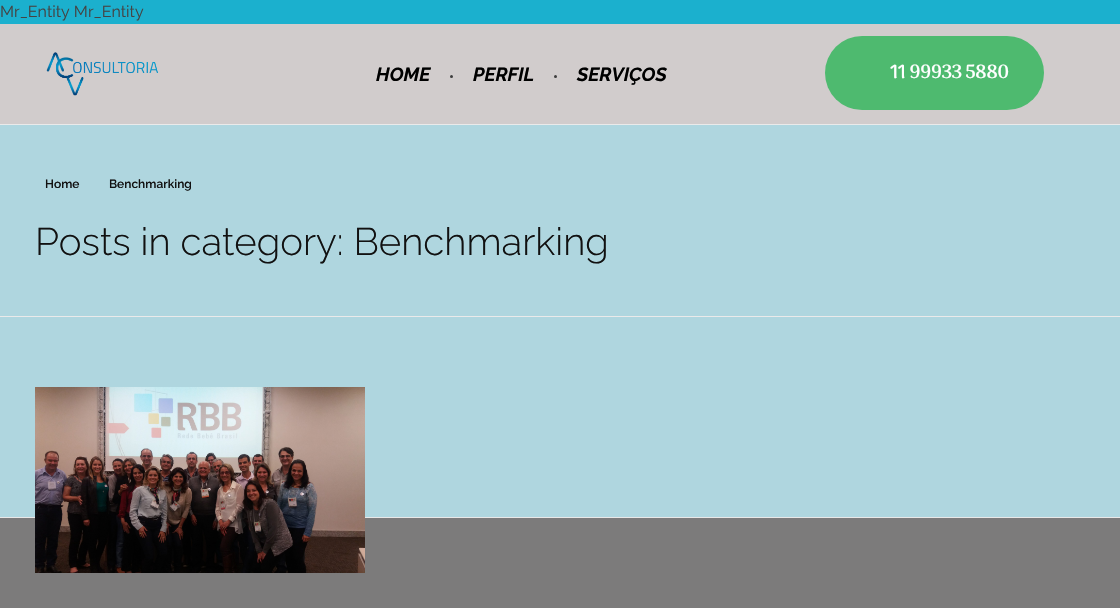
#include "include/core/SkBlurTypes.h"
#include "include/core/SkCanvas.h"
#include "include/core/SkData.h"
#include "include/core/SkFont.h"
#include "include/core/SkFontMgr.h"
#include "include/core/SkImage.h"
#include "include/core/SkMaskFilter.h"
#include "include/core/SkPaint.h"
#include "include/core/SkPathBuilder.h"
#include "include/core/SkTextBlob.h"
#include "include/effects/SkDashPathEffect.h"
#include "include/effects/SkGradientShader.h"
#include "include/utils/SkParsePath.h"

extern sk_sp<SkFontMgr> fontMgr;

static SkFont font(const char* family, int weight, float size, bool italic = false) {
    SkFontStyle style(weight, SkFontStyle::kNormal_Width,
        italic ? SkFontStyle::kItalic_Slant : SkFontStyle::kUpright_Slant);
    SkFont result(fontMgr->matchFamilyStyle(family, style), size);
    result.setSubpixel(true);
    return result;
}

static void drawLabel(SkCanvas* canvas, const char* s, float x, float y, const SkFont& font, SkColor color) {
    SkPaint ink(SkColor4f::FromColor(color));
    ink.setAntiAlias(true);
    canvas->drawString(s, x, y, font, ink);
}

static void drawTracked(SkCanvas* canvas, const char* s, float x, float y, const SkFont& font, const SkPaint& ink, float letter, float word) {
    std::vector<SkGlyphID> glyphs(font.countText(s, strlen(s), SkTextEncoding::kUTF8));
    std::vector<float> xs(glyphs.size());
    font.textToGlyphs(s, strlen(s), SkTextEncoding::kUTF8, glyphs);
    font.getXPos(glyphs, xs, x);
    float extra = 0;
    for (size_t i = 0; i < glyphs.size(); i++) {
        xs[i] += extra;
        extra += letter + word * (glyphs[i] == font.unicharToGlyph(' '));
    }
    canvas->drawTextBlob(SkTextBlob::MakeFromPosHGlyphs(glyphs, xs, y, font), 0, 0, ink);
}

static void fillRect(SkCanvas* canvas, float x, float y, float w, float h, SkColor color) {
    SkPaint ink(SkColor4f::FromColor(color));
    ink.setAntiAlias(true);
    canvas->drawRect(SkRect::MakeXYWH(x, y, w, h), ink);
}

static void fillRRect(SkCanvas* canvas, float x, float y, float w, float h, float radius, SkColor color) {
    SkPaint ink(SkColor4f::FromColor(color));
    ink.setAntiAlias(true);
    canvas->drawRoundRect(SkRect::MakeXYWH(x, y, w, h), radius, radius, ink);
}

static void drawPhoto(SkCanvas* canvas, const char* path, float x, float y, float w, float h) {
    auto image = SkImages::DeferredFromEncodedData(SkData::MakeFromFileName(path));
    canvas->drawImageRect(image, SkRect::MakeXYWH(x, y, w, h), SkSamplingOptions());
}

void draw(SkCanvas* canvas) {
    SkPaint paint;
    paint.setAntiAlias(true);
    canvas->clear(0xFF1BB0CE);
    SkFont font1 = font("Raleway", 400, 16);
    drawLabel(canvas, "Mr_Entity Mr_Entity", 0, 17, font1, 0xFF444444);
    fillRect(canvas, 0, 317, 1120, 200, 0xFFAFD6DF);
    fillRect(canvas, 0, 24, 1120, 100, 0xFFD1CCCC);
    fillRect(canvas, 0, 124, 1120, 1, 0xFFEAEAEA);
    drawPhoto(canvas, "assets/img1.png", 46, 52, 112, 44);
    SkFont font2 = font("Raleway", 700, 19, true);
    drawLabel(canvas, "HOME", 376, 81, font2, 0xFF000000);
    paint.setColor(0xFF3D3D3D);
    canvas->drawCircle(451.5f, 76.5f, 1.5f, paint);
    drawLabel(canvas, "PERFIL", 473, 81, font2, 0xFF000000);
    canvas->drawCircle(555.5f, 76.5f, 1.5f, paint);
    drawLabel(canvas, "SERVIÇOS", 577, 81, font2, 0xFF000000);
    fillRRect(canvas, 825, 36, 219, 74, 37, 0xFF4EBA6F);
    SkFont font3 = font("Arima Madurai", 700, 19);
    paint.setColor(0xFFFFFFFF);
    drawTracked(canvas, "11 99933 5880", 890, 78, font3, paint, -0.6f, 0);
    fillRect(canvas, 0, 125, 1120, 191, 0xFFAFD6DF);
    fillRect(canvas, 0, 316, 1120, 1, 0xFFEAEAEA);
    SkFont font4 = font("Raleway", 600, 12);
    drawLabel(canvas, "Home", 45, 188, font4, 0xFF111111);
    drawLabel(canvas, "Benchmarking", 109, 188, font4, 0xFF111111);
    SkFont font5 = font("Raleway", 300, 38.4f);
    drawLabel(canvas, "Posts in category: Benchmarking", 35, 255, font5, 0xFF111111);
    fillRect(canvas, 0, 518, 1120, 90, 0xFF7C7B7B);
    fillRect(canvas, 0, 517, 1120, 1, 0xFFE8E8E8);
    drawPhoto(canvas, "assets/img2.png", 35, 387, 330, 186);
}
